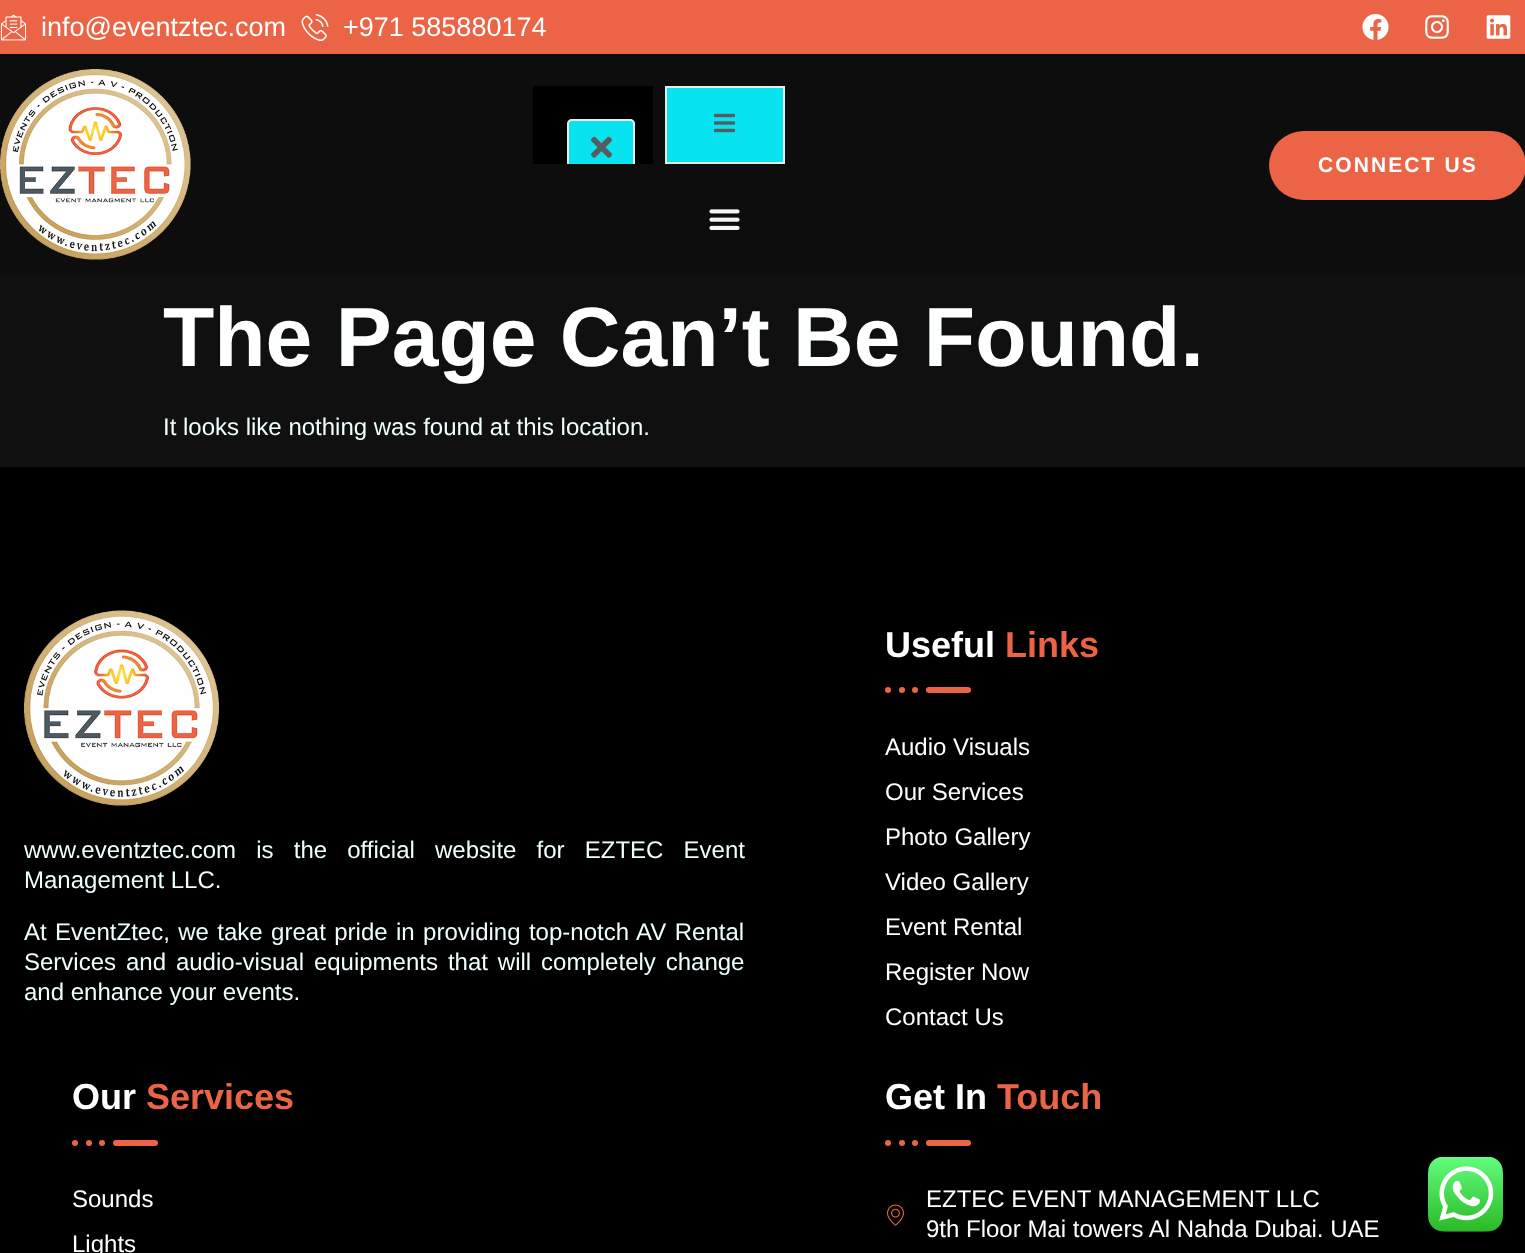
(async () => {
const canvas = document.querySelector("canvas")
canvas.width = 1525
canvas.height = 1253
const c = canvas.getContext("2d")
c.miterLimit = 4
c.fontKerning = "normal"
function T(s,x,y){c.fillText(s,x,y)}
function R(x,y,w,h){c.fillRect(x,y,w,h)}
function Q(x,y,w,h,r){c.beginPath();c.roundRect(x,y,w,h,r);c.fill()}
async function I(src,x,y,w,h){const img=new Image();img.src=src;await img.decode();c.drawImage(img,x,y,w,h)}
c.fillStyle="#101010"
R(0,0,1525,1253)
c.fillStyle="#eb6446"
R(0,0,1525,54)
await I("1.png",0,14,27,27)
c.font="27px Liberation Sans"
c.fillStyle="#feffff"
T("info@eventztec.com",41,36)
await I("2.png",301,14,28,27)
T("+971 585880174",343,36)
await I("3.png",1362,14,27,26)
await I("4.png",1425,15,24,24)
await I("5.png",1486,15,25,24)
c.fillStyle="#0d0d0d"
R(0,54,1525,221)
await I("6.png",0,69,191,191)
c.fillStyle="#000"
R(533,86,120,78)
c.fillStyle="#07e3ef"
c.beginPath()
c.roundRect(567,119,68,45,[5,5,0,0])
c.fill()
c.save()
c.beginPath()
c.rect(533,86,120,78)
c.clip()
c.beginPath()
c.roundRect(568,120,66,58,4)
c.strokeStyle="#eaeaeb"
c.lineWidth=2
c.stroke()
c.restore()
await I("7.png",591,136,21,22)
c.beginPath()
c.rect(666,87,118,76)
c.fill()
c.strokeStyle="#eaeaeb"
c.lineWidth=2
c.stroke()
await I("8.png",714,113,21,20)
await I("9.png",709,209,31,21)
c.fillStyle="#eb6446"
Q(1269,131,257,69,34.5)
c.letterSpacing="2.1px"
c.font="bold 21px Liberation Sans"
c.fillStyle="#feffff"
T("CONNECT US",1318,172)
c.letterSpacing="0px"
c.font="bold 84px Liberation Sans"
T("The Page Can’t Be Found.",163,366)
c.font="24px Liberation Sans"
c.fillStyle="#effefe"
T("It looks like nothing was found at this location.",163,435)
c.fillStyle="#000"
R(0,467,1525,786)
await I("10.png",24,610,195,196)
c.wordSpacing="13.5px"
c.fillStyle="#effefe"
T("www.eventztec.com is the official website for EZTEC Event",24,858)
c.wordSpacing="0px"
T("Management LLC.",24,888)
c.wordSpacing="1.75px"
T("At EventZtec, we take great pride in providing top-notch AV Rental",24,940)
c.wordSpacing="3.25px"
T("Services and audio-visual equipments that will completely change",24,970)
c.wordSpacing="0px"
T("and enhance your events.",24,1000)
c.font="bold 36px Liberation Sans"
c.fillStyle="#feffff"
T("Useful",885,657)
c.fillStyle="#eb6446"
T("Links",1005,657)
Q(926,687,45,6,3)
c.beginPath()
c.arc(915,690,3,0,7)
c.fill()
c.beginPath()
c.arc(902,690,3,0,7)
c.fill()
c.beginPath()
c.arc(888,690,3,0,7)
c.fill()
c.font="24px Liberation Sans"
c.fillStyle="#feffff"
T("Audio Visuals",885,755)
T("Our Services",885,800)
T("Photo Gallery",885,845)
T("Video Gallery",885,890)
T("Event Rental",885,935)
T("Register Now",885,980)
T("Contact Us",885,1025)
c.font="bold 36px Liberation Sans"
T("Our",72,1109)
c.fillStyle="#eb6446"
T("Services",146,1109)
Q(113,1140,45,6,3)
c.beginPath()
c.arc(102,1143,3,0,7)
c.fill()
c.beginPath()
c.arc(89,1143,3,0,7)
c.fill()
c.beginPath()
c.arc(75,1143,3,0,7)
c.fill()
c.font="24px Liberation Sans"
c.fillStyle="#feffff"
T("Sounds",72,1207)
T("Lights",72,1252)
c.font="bold 36px Liberation Sans"
T("Get In",885,1109)
c.fillStyle="#eb6446"
T("Touch",997,1109)
Q(926,1140,45,6,3)
c.beginPath()
c.arc(915,1143,3,0,7)
c.fill()
c.beginPath()
c.arc(902,1143,3,0,7)
c.fill()
c.beginPath()
c.arc(888,1143,3,0,7)
c.fill()
await I("11.png",887,1204,17,22)
c.font="24px Liberation Sans"
c.fillStyle="#feffff"
T("EZTEC EVENT MANAGEMENT LLC",926,1207)
T("9th Floor Mai towers Al Nahda Dubai. UAE",926,1237)
await I("12.png",1428,1157,75,75)
})()
